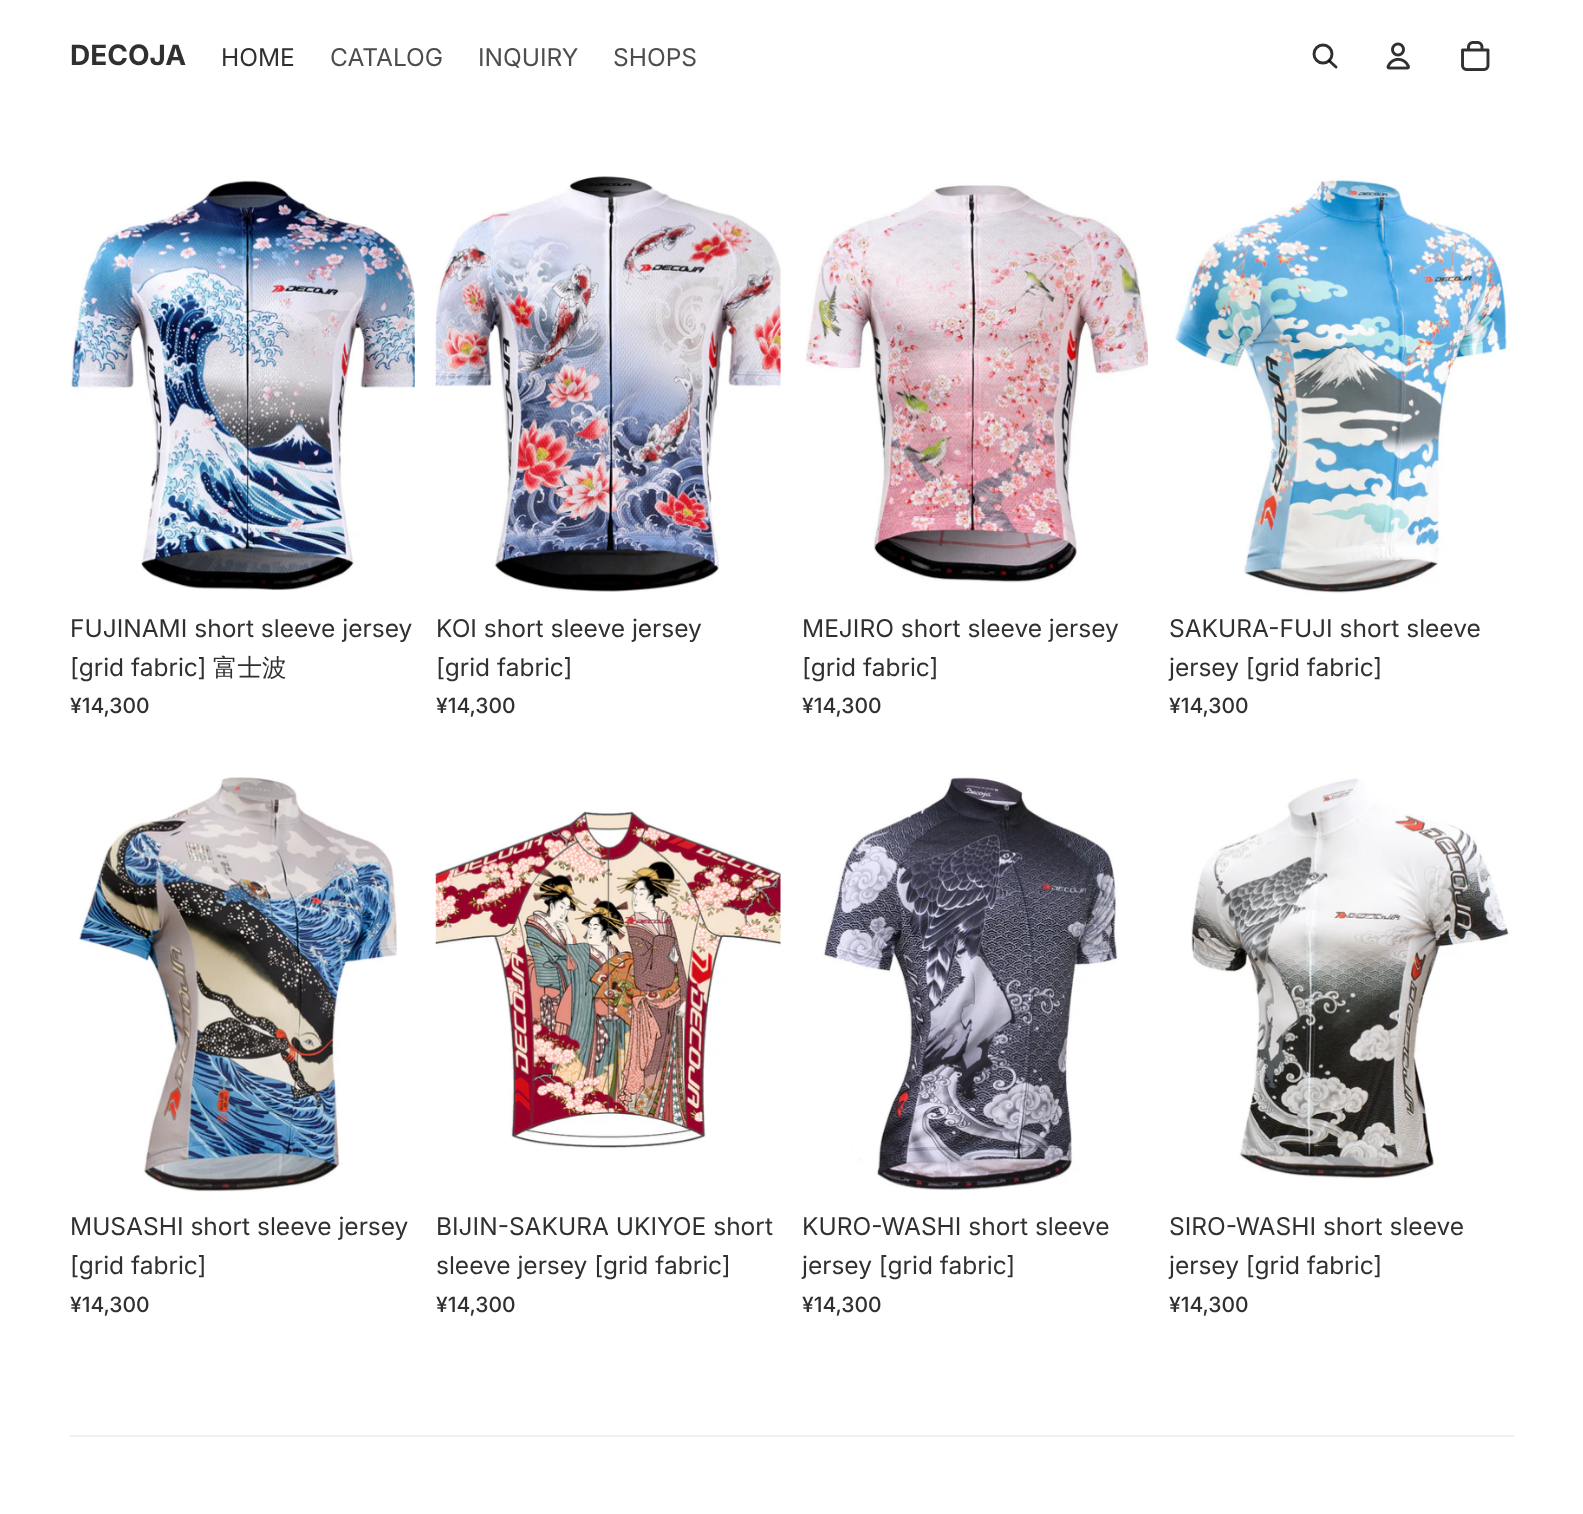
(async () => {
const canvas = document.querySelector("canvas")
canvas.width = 1583
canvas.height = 1514
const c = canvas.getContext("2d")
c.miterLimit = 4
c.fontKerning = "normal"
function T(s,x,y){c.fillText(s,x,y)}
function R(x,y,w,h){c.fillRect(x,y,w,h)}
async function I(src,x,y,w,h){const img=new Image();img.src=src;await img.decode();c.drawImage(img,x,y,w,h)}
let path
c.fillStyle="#fff"
R(0,0,1583,1514)
c.font="bold 28px Inter"
c.fillStyle="#303030"
T("DECOJA",70,65)
c.font="24.5px Inter"
T("HOME",221,66)
c.fillStyle="#4d4d4d"
T("CATALOG",330,66)
T("INQUIRY",478,66)
T("SHOPS",613,66)
c.beginPath()
c.arc(1323,54,9,0,7)
c.strokeStyle="#303030"
c.lineWidth=2.9
c.stroke()
path = new Path2D("M1329.5 61l6.5 6")
c.strokeStyle="#000000cf"
c.lineCap="round"
c.lineJoin="round"
c.stroke(path)
await I("1.png",1386,42,24,28)
await I("2.png",1461,41,29,30)
await I("3.png",70,180,345,411)
c.fillStyle="#303030"
T("FUJINAMI short sleeve jersey",70,637)
T("[grid fabric]",70,676)
c.font="500 24.5px WenQuanYi Zen Hei"
T("富士波",213,676)
c.font="500 21px Inter"
T("¥14,300",70,713)
await I("4.png",435,176,346,416)
c.font="24.5px Inter"
T("KOI short sleeve jersey",436,637)
T("[grid fabric]",436,676)
c.font="500 21px Inter"
T("¥14,300",436,713)
await I("5.png",805,183,343,400)
c.font="24.5px Inter"
T("MEJIRO short sleeve jersey",802,637)
T("[grid fabric]",802,676)
c.font="500 21px Inter"
T("¥14,300",802,713)
await I("6.png",1174,177,333,417)
c.font="24.5px Inter"
T("SAKURA-FUJI short sleeve",1169,637)
T("jersey [grid fabric]",1169,676)
c.font="500 21px Inter"
T("¥14,300",1169,713)
await I("7.png",79,777,318,415)
c.font="24.5px Inter"
T("MUSASHI short sleeve jersey",70,1235)
T("[grid fabric]",70,1274)
c.font="500 21px Inter"
T("¥14,300",70,1312)
await I("8.png",435,811,346,338)
c.font="24.5px Inter"
T("BIJIN-SAKURA UKIYOE short",436,1235)
T("sleeve jersey [grid fabric]",436,1274)
c.font="500 21px Inter"
T("¥14,300",436,1312)
await I("9.png",822,776,296,415)
c.font="24.5px Inter"
T("KURO-WASHI short sleeve",802,1235)
T("jersey [grid fabric]",802,1274)
c.font="500 21px Inter"
T("¥14,300",802,1312)
await I("10.png",1191,778,318,401)
c.font="24.5px Inter"
T("SIRO-WASHI short sleeve",1169,1235)
T("jersey [grid fabric]",1169,1274)
c.font="500 21px Inter"
T("¥14,300",1169,1312)
c.fillStyle="#f0f0f0"
path = new Path2D("M1514 1435v2l-2-2z")
c.fill(path)
c.fillStyle="#0000000f"
path = new Path2D("M1514 1437h-1444v-2h1442z")
c.fill(path)
})()
